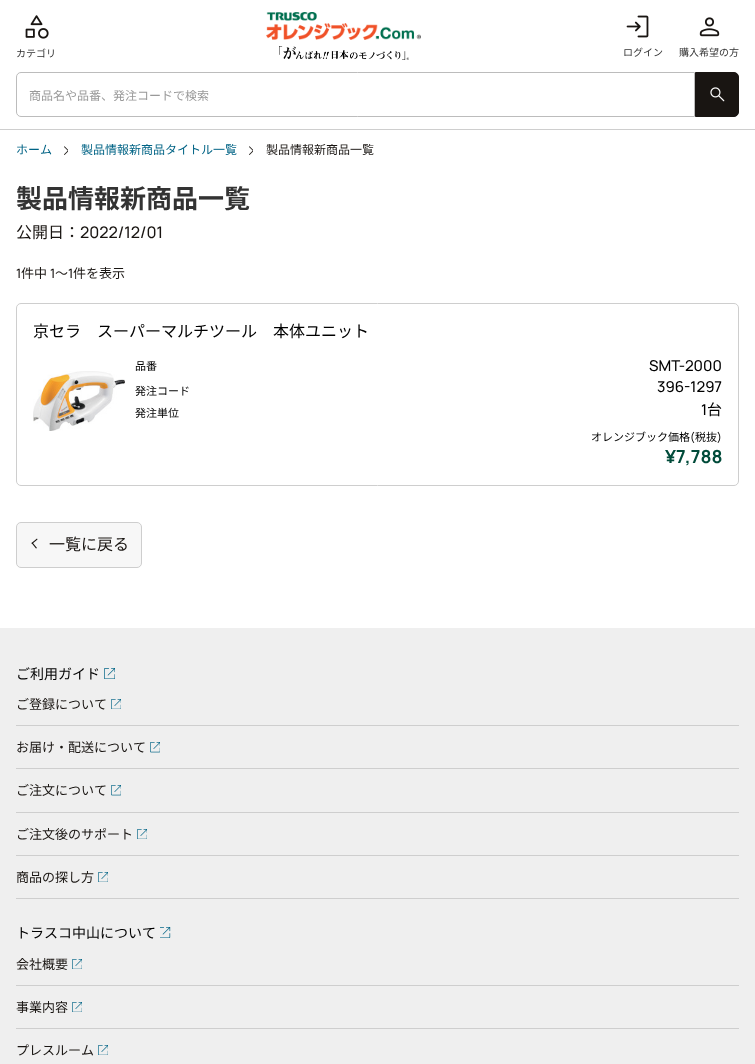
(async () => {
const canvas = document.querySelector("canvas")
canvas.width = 755
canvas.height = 1064
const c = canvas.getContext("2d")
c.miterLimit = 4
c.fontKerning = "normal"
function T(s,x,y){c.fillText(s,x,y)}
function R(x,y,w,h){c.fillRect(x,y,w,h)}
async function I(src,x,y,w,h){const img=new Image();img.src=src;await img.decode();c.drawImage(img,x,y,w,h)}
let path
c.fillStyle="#fff"
R(0,0,755,1064)
await I("1.png",25,15,24,24)
c.font="10px Noto Sans JP"
c.fillStyle="#333"
T("カテゴリ",16,57)
await I("2.png",266,12,155,28)
await I("3.png",279,46,130,14)
await I("4.png",626,15,23,23)
T("ログイン",623,56)
await I("5.png",699,17,21,20)
T("購入希望の方",679,56)
c.beginPath()
c.roundRect(16.5,72.5,678,44,[4.5,0,0,4.5])
c.strokeStyle="#bcbcbc"
c.stroke()
c.font="12px Noto Sans JP"
c.fillStyle="#999"
T("商品名や品番、発注コードで検索",29,100)
c.fillStyle="#191512"
c.beginPath()
c.roundRect(695.5,72.5,43,44,[0,4.5,4.5,0])
c.fill()
c.strokeStyle="#191512"
c.stroke()
await I("6.png",710,87,15,15)
c.fillStyle="#cecece"
R(0,129,755,1)
c.fillStyle="#006385"
T("ホーム",16,154)
await I("7.png",64,146,4,9)
T("製品情報新商品タイトル一覧",81,154)
await I("7.png",249,146,4,9)
c.fillStyle="#191512"
T("製品情報新商品一覧",266,154)
c.font="bold 26px Noto Sans JP"
c.fillStyle="#333"
T("製品情報新商品一覧",16,208)
c.font="16px Noto Sans JP"
c.fillStyle="#191512"
T("公開日：",16,238)
c.font="500 16px Manrope"
T("2022/12/01",80,238)
c.font="500 13px Manrope"
T("1",16,278)
c.font="13px Noto Sans JP"
T("件中",21,278)
c.font="500 13px Manrope"
T("1",50,278)
c.font="13px Noto Sans JP"
T("〜",55,278)
c.font="500 13px Manrope"
T("1",68,278)
c.font="13px Noto Sans JP"
T("件を表示",73,278)
c.beginPath()
c.roundRect(16.5,303.5,722,182,4.5)
c.strokeStyle="#cecece"
c.stroke()
c.font="16px Noto Sans JP"
c.fillStyle="#000"
T("京セラ　スーパーマルチツール　本体ユニット",33,337)
await I("8.png",33,371,92,60)
c.font="11px Noto Sans JP"
T("品番",135,370)
c.font="500 15px Manrope"
T("SMT-2000",649,371)
c.font="11px Noto Sans JP"
T("発注コード",135,395)
c.font="500 15px Manrope"
T("396-1297",657,392)
c.font="11px Noto Sans JP"
T("発注単位",135,417)
c.font="500 15px Manrope"
T("1",701,415)
c.font="15px Noto Sans JP"
T("台",707,415)
c.font="11px Noto Sans JP"
T("オレンジブック価格",591,441)
c.font="500 11px Manrope"
T("(",690,441)
c.font="11px Noto Sans JP"
T("税抜",695,441)
c.font="500 11px Manrope"
T(")",717,441)
c.font="bold 18px Manrope"
c.fillStyle="#014b3a"
T("¥7,788",665,463)
c.fillStyle="#f7f7f7"
c.beginPath()
c.roundRect(16.5,522.5,125,45,4.5)
c.fill()
c.stroke()
c.fillStyle="#191512"
path = new Path2D("M36 548.5l-4.5-5.5l1-.5l4.5 5.5z")
c.fill(path)
path = new Path2D("M32 544l-.5-1l5.5-4.5l.5 1z")
c.fill(path)
c.font="16px Noto Sans JP"
T("一覧に戻る",49,550)
c.fillStyle="#efefef"
R(0,628,755,436)
c.font="14px Noto Sans JP"
c.fillStyle="#000"
T("ご利用ガイド",16,679)
await I("9.png",104,668,11,11)
c.fillStyle="#cecece"
R(16,725,723,1)
c.font="13px Noto Sans JP"
c.fillStyle="#191512"
T("ご登録について",16,709)
await I("10.png",111,699,10,10)
c.fillStyle="#cecece"
R(16,768,723,1)
c.fillStyle="#191512"
T("お届け・配送について",16,752)
await I("11.png",150,742,10,11)
c.fillStyle="#cecece"
R(16,812,723,1)
c.fillStyle="#191512"
T("ご注文について",16,795)
await I("11.png",111,785,10,11)
c.fillStyle="#cecece"
R(16,855,723,1)
c.fillStyle="#191512"
T("ご注文後のサポート",16,839)
await I("10.png",137,829,10,10)
c.fillStyle="#cecece"
R(16,898,723,1)
c.fillStyle="#191512"
T("商品の探し方",16,882)
await I("10.png",98,872,10,10)
c.font="14px Noto Sans JP"
c.fillStyle="#000"
T("トラスコ中山について",16,938)
await I("12.png",160,927,11,11)
c.fillStyle="#cecece"
R(16,985,723,1)
c.font="13px Noto Sans JP"
c.fillStyle="#191512"
T("会社概要",16,969)
await I("10.png",72,959,10,10)
c.fillStyle="#cecece"
R(16,1028,723,1)
c.fillStyle="#191512"
T("事業内容",16,1012)
await I("10.png",72,1002,10,10)
T("プレスルーム",16,1055)
await I("10.png",98,1045,10,10)
})()
